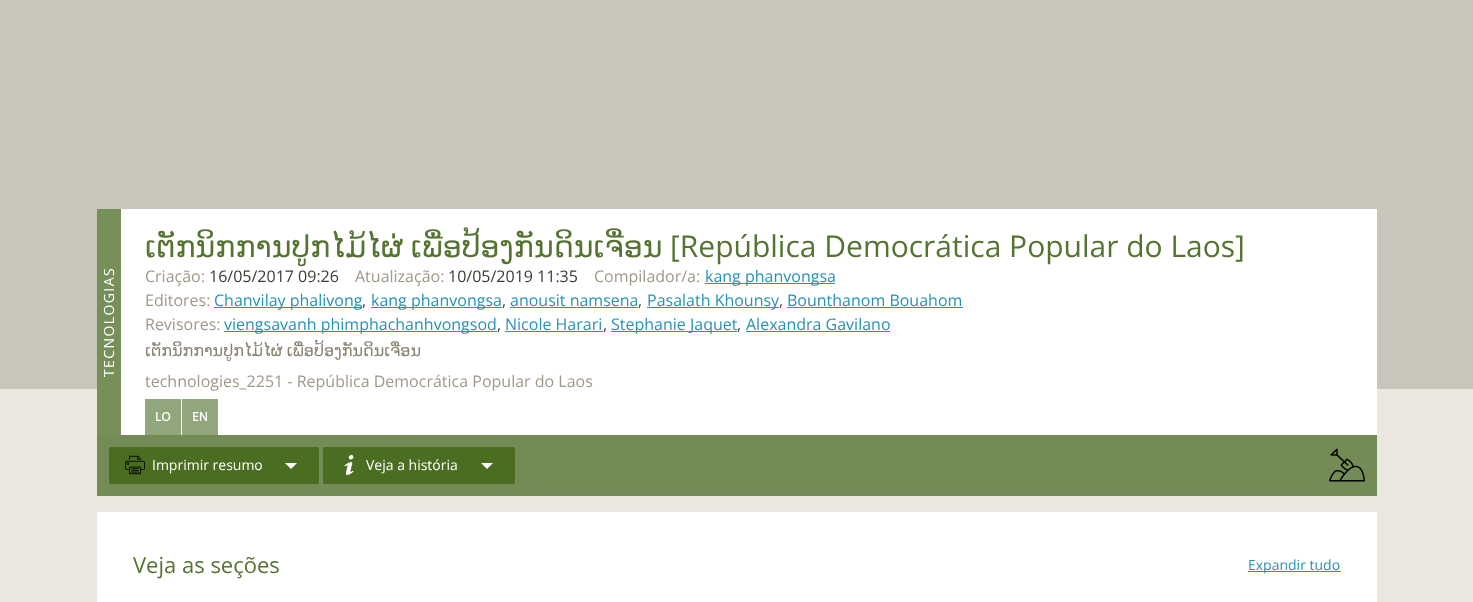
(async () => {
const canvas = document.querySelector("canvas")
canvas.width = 1473
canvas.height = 602
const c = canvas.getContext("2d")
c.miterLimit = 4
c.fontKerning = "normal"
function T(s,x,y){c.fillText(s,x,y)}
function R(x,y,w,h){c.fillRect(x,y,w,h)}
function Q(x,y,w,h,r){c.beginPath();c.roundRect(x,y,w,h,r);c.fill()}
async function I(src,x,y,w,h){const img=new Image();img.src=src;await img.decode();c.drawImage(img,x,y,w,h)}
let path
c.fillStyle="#eae8df"
R(0,0,1473,602)
c.fillStyle="#cac5ba"
R(0,0,1473,389)
c.fillStyle="#fff"
R(121,209,1256,226)
c.wordSpacing="-2px"
c.font="30px DejaVu Sans"
c.fillStyle="#557431"
T("ເຕັກນິກການປູກໄມ້ໄຜ່ ເພື່ອປ້ອງກັນດິນເຈື່ອນ",145,257)
c.wordSpacing="0px"
c.font="30px Open Sans"
T("[República Democrática Popular do Laos]",670,257)
c.fillStyle="#77905a"
R(97,209,24,226)
c.letterSpacing="1.4px"
c.font="14px Open Sans"
c.fillStyle="#fff"
c.save()
c.translate(114,377)
c.rotate(-90 * Math.PI / 180)
c.fillText("TECNOLOGIAS",0,0)
c.restore()
c.letterSpacing="0px"
c.font="16px Open Sans"
c.fillStyle="#a09889"
T("Criação:",145,282)
c.fillStyle="#3e3b34"
T("16/05/2017 09:26",209,282)
c.fillStyle="#a09889"
T("Atualização:",355,282)
c.fillStyle="#3e3b34"
T("10/05/2019 11:35",448,282)
c.fillStyle="#a09889"
T("Compilador/a:",594,282)
c.fillStyle="#2592b7"
R(705,283,130,1)
T("kang phanvongsa",705,282)
c.fillStyle="#a09889"
T("Editores:",145,306)
c.fillStyle="#2592b7"
R(214,307,148,1)
T("Chanvilay phalivong",214,306)
c.fillStyle="#3e3b34"
T(",",362,306)
c.fillStyle="#2592b7"
R(371,307,131,1)
T("kang phanvongsa",371,306)
c.fillStyle="#3e3b34"
T(",",502,306)
c.fillStyle="#2592b7"
T("anousit namsena",510,306)
R(510,307,128,1)
c.fillStyle="#3e3b34"
T(",",638,306)
c.fillStyle="#2592b7"
R(647,307,132,1)
T("Pasalath Khounsy",647,306)
c.fillStyle="#3e3b34"
T(",",779,306)
c.fillStyle="#2592b7"
T("Bounthanom Bouahom",787,306)
R(787,307,176,1)
c.fillStyle="#a09889"
T("Revisores:",145,330)
c.fillStyle="#2592b7"
R(224,331,273,1)
T("viengsavanh phimphachanhvongsod",224,330)
c.fillStyle="#3e3b34"
T(",",497,330)
c.fillStyle="#2592b7"
T("Nicole Harari",505,330)
R(505,331,98,1)
c.fillStyle="#3e3b34"
T(",",603,330)
c.fillStyle="#2592b7"
R(611,331,126,1)
T("Stephanie Jaquet",611,330)
c.fillStyle="#3e3b34"
T(",",737,330)
c.fillStyle="#2592b7"
T("Alexandra Gavilano",746,330)
R(746,331,144,1)
c.wordSpacing="-1px"
c.font="16px DejaVu Sans"
c.fillStyle="#898373"
T("ເຕັກນິກການປູກໄມ້ໄຜ່ ເພື່ອປ້ອງກັນດິນເຈື່ອນ",145,356)
c.wordSpacing="0px"
c.font="16px Open Sans"
c.fillStyle="#a09889"
T("technologies_2251 - República Democrática Popular do Laos",145,387)
c.fillStyle="#92a67b"
R(145,399,36,36)
c.font="bold 12px Open Sans"
c.fillStyle="#fff"
T("LO",155,421)
c.fillStyle="#92a67b"
R(182,399,36,36)
c.fillStyle="#fff"
T("EN",192,421)
c.fillStyle="#738b54"
R(97,435,1280,61)
c.fillStyle="#4a6d22"
Q(109,447,210,37,2)
await I("1.png",125,455,20,20)
c.font="14px Open Sans"
c.fillStyle="#fff"
T("Imprimir resumo",152,470)
path = new Path2D("M285 463h12l-6 6z")
c.fill(path)
c.fillStyle="#4a6d22"
Q(323,447,192,37,2)
await I("2.png",344,455,10,20)
c.fillStyle="#fff"
T("Veja a história",366,470)
path = new Path2D("M481 463h12l-6 6z")
c.fill(path)
await I("3.png",1329,448,36,34)
R(97,512,1280,90)
c.font="22px Open Sans"
c.fillStyle="#557431"
T("Veja as seções",133,573)
c.fillStyle="#2592b7"
R(1248,571,93,1)
c.font="14px Open Sans"
T("Expandir tudo",1248,570)
})()
